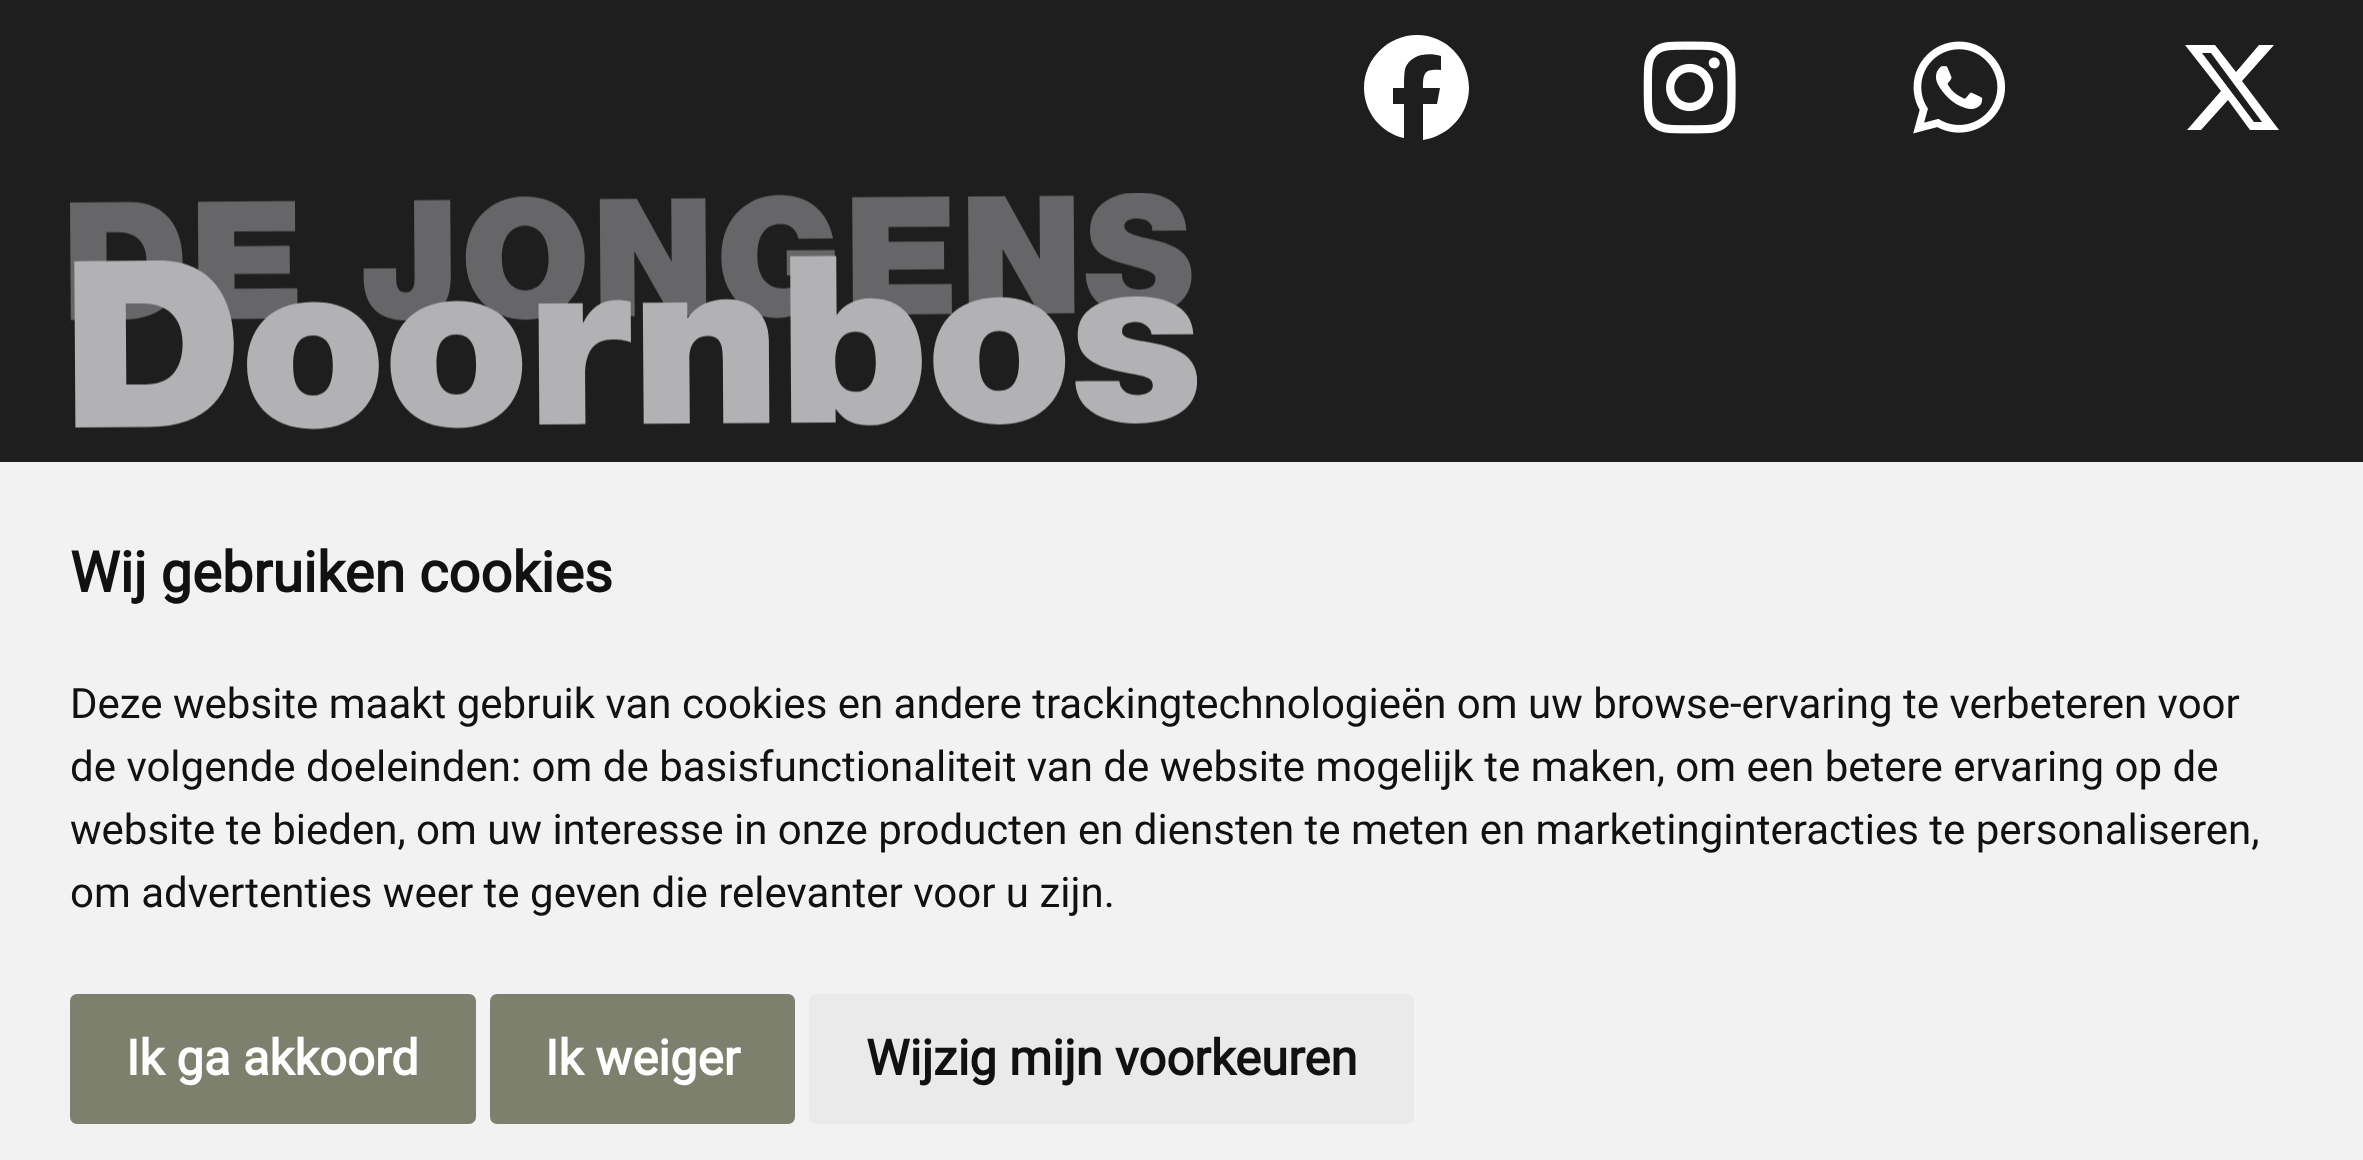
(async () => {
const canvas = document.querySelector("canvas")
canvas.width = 2363
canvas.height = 1160
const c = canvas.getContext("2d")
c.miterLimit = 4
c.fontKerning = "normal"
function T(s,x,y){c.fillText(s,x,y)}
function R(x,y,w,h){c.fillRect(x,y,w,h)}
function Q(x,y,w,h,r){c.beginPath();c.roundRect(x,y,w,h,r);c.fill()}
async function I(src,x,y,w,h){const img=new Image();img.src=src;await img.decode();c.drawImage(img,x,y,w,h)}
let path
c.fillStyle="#1e1e1e"
R(0,0,2363,1160)
c.fillStyle="#fff"
path = new Path2D("M1469 88c0-29-23-53-52-53c-29 0-53 24-53 53c0 24 17 45 40 50v-34h-11v-16h11c0-7 0-13 1-19c5-15 23-17 36-13v14c-16-1-18 2-18 18h17l-3 16h-14v36c26-4 46-26 46-52z")
c.fill(path)
await I("1.png",1643,41,93,93)
await I("2.png",1913,41,93,93)
path = new Path2D("M2259 45h15l-32 36l37 49h-29l-22-30l-27 30h-14l34-39l-36-46h30l21 27zm-5 77h8l-51-69h-9z")
c.fill(path)
await I("3.png",70,193,1127,237)
c.fillStyle="#f2f2f2"
R(0,462,2363,698)
c.font="bold 56px Roboto"
c.fillStyle="#111"
T("Wij gebruiken cookies",70,592)
c.font="42px Roboto"
T("Deze website maakt gebruik van cookies en andere trackingtechnologieën om uw browse-ervaring te verbeteren voor",70,718)
T("de volgende doeleinden: om de basisfunctionaliteit van de website mogelijk te maken, om een betere ervaring op de",70,781)
T("website te bieden, om uw interesse in onze producten en diensten te meten en marketinginteracties te personaliseren,",70,844)
T("om advertenties weer te geven die relevanter voor u zijn.",70,907)
c.fillStyle="#7c806d"
Q(70,994,406,130,7)
c.font="bold 49px Roboto"
c.fillStyle="#fff"
T("Ik ga akkoord",126,1075)
c.fillStyle="#7c806d"
Q(490,994,305,130,7)
c.fillStyle="#fff"
T("Ik weiger",545,1075)
c.fillStyle="#eaeaea"
Q(809,994,605,130,7)
c.fillStyle="#111"
T("Wijzig mijn voorkeuren",866,1075)
})()
